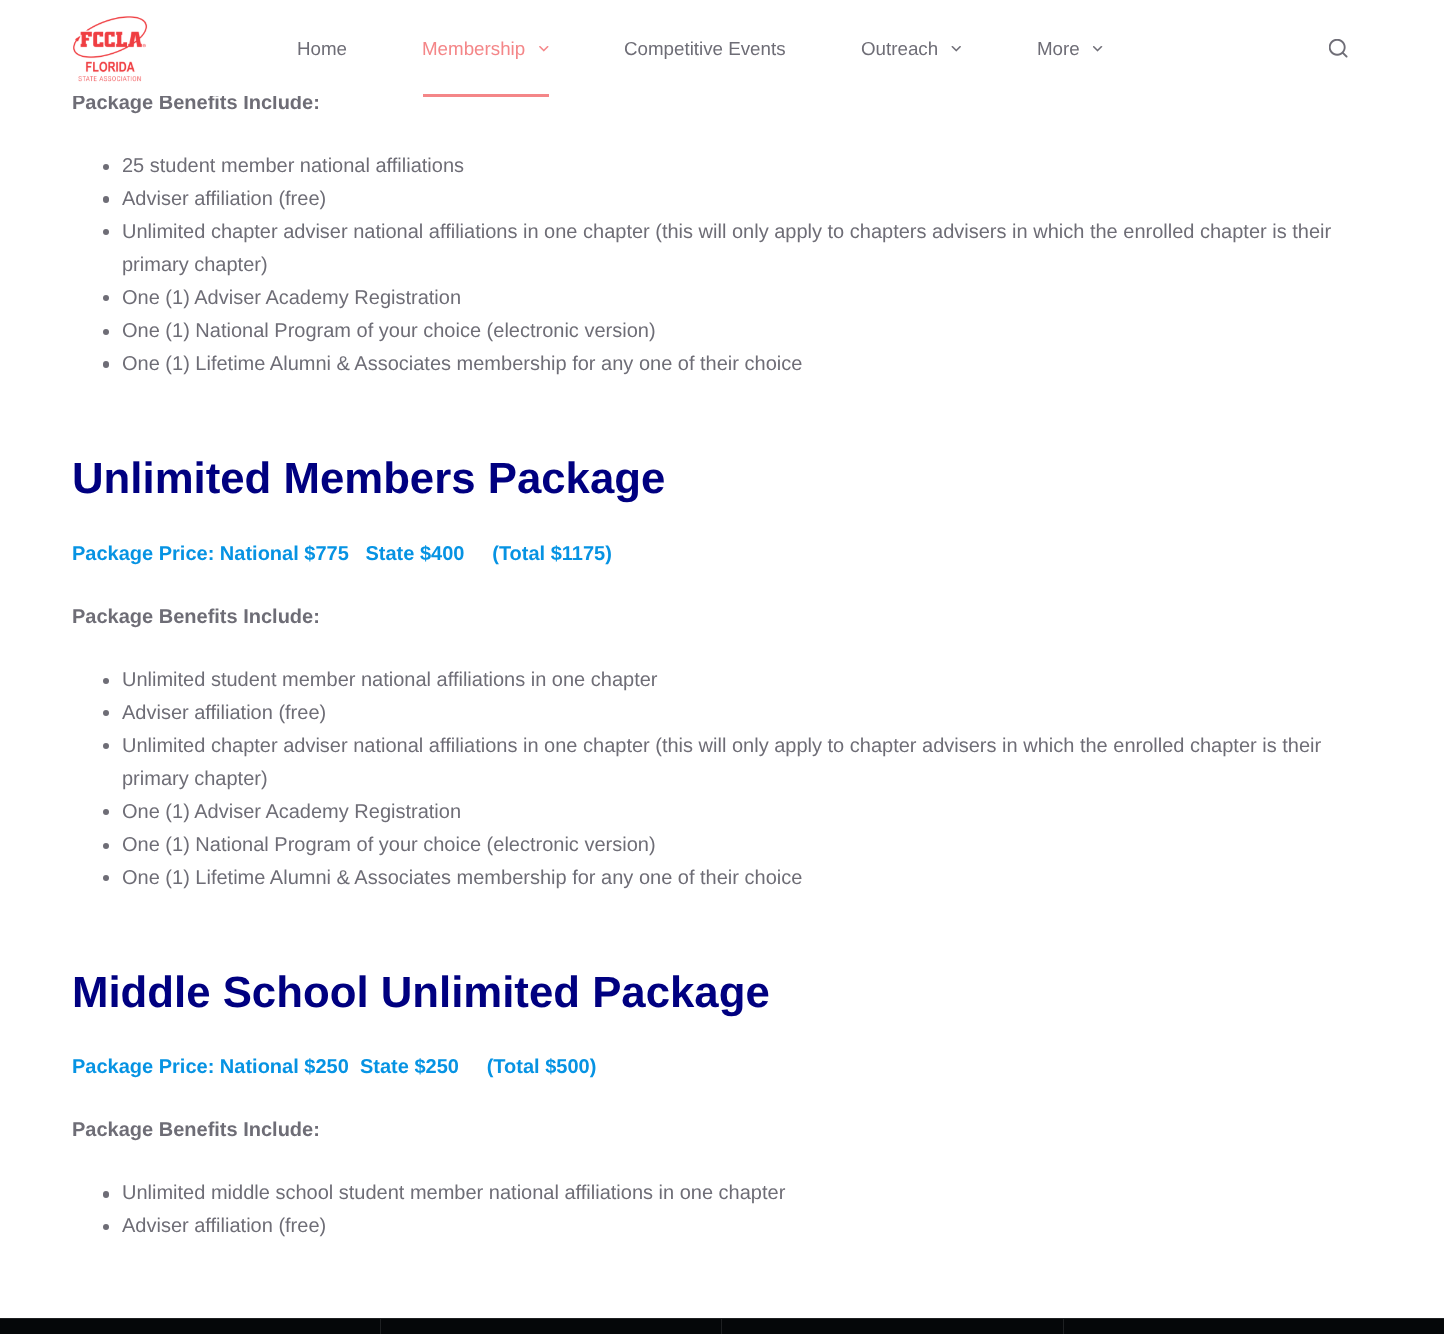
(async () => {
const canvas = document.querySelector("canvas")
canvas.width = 1444
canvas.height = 1334
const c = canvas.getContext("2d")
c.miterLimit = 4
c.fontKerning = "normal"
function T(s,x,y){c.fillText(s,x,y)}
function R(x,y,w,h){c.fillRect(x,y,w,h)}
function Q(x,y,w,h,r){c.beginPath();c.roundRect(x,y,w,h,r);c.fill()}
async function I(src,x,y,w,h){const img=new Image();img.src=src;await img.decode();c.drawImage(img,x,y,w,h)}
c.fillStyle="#fff"
R(0,0,1444,1334)
c.font="bold 20px Liberation Sans"
c.fillStyle="#6e6d76"
T("Package Benefits Include:",72,109)
c.fillStyle="#fff"
R(73,94,228,2)
await I("1.png",73,16,75,66)
c.font="18.75px Liberation Sans"
c.fillStyle="#6e6d76"
T("Home",297,55)
c.fillStyle="#f48688"
T("Membership",422,55)
await I("2.png",539,46,10,6)
R(423,94,126,3)
c.fillStyle="#6e6d76"
T("Competitive Events",624,55)
T("Outreach",861,55)
await I("3.png",951,46,10,6)
T("More",1037,55)
await I("4.png",1093,46,10,6)
await I("5.png",1329,39,19,19)
c.beginPath()
c.arc(106,167,3,0,7)
c.fill()
c.font="20px Liberation Sans"
T("25 student member national affiliations",122,172)
Q(103,196,6,7,3)
T("Adviser affiliation (free)",122,205)
c.beginPath()
c.arc(106,232,3,0,7)
c.fill()
T("Unlimited chapter adviser national affiliations in one chapter (this will only apply to chapters advisers in which the enrolled chapter is their",122,238)
T("primary chapter)",122,271)
c.beginPath()
c.arc(106,298,3,0,7)
c.fill()
T("One (1) Adviser Academy Registration",122,304)
c.beginPath()
c.arc(106,332,3,0,7)
c.fill()
T("One (1) National Program of your choice (electronic version)",122,337)
Q(103,361,6,7,3)
T("One (1) Lifetime Alumni & Associates membership for any one of their choice",122,370)
c.font="bold 43.75px Liberation Sans"
c.fillStyle="#000080"
T("Unlimited Members Package",72,493)
c.font="bold 20px Liberation Sans"
c.fillStyle="#0693e3"
T("Package Price: National $775   State $400     (Total $1175)",72,560)
c.fillStyle="#6e6d76"
T("Package Benefits Include:",72,623)
c.beginPath()
c.arc(106,681,3,0,7)
c.fill()
c.font="20px Liberation Sans"
T("Unlimited student member national affiliations in one chapter",122,686)
c.beginPath()
c.arc(106,713,3,0,7)
c.fill()
T("Adviser affiliation (free)",122,719)
c.beginPath()
c.arc(106,746,3,0,7)
c.fill()
T("Unlimited chapter adviser national affiliations in one chapter (this will only apply to chapter advisers in which the enrolled chapter is their",122,752)
T("primary chapter)",122,785)
c.beginPath()
c.arc(106,812,3,0,7)
c.fill()
T("One (1) Adviser Academy Registration",122,818)
c.beginPath()
c.arc(106,846,3,0,7)
c.fill()
T("One (1) National Program of your choice (electronic version)",122,851)
c.beginPath()
c.arc(106,878,3,0,7)
c.fill()
T("One (1) Lifetime Alumni & Associates membership for any one of their choice",122,884)
c.font="bold 43.75px Liberation Sans"
c.fillStyle="#000080"
T("Middle School Unlimited Package",72,1007)
c.font="bold 20px Liberation Sans"
c.fillStyle="#0693e3"
T("Package Price: National $250  State $250     (Total $500)",72,1073)
c.fillStyle="#6e6d76"
T("Package Benefits Include:",72,1136)
Q(103,1191,6,7,3)
c.font="20px Liberation Sans"
T("Unlimited middle school student member national affiliations in one chapter",122,1199)
c.beginPath()
c.arc(106,1227,3,0,7)
c.fill()
T("Adviser affiliation (free)",122,1232)
c.fillStyle="#050709"
R(0,1319,1444,15)
c.fillStyle="#1e2022"
R(0,1318,1444,1)
R(380,1319,1,15)
R(721,1319,1,15)
R(1063,1319,1,15)
})()
